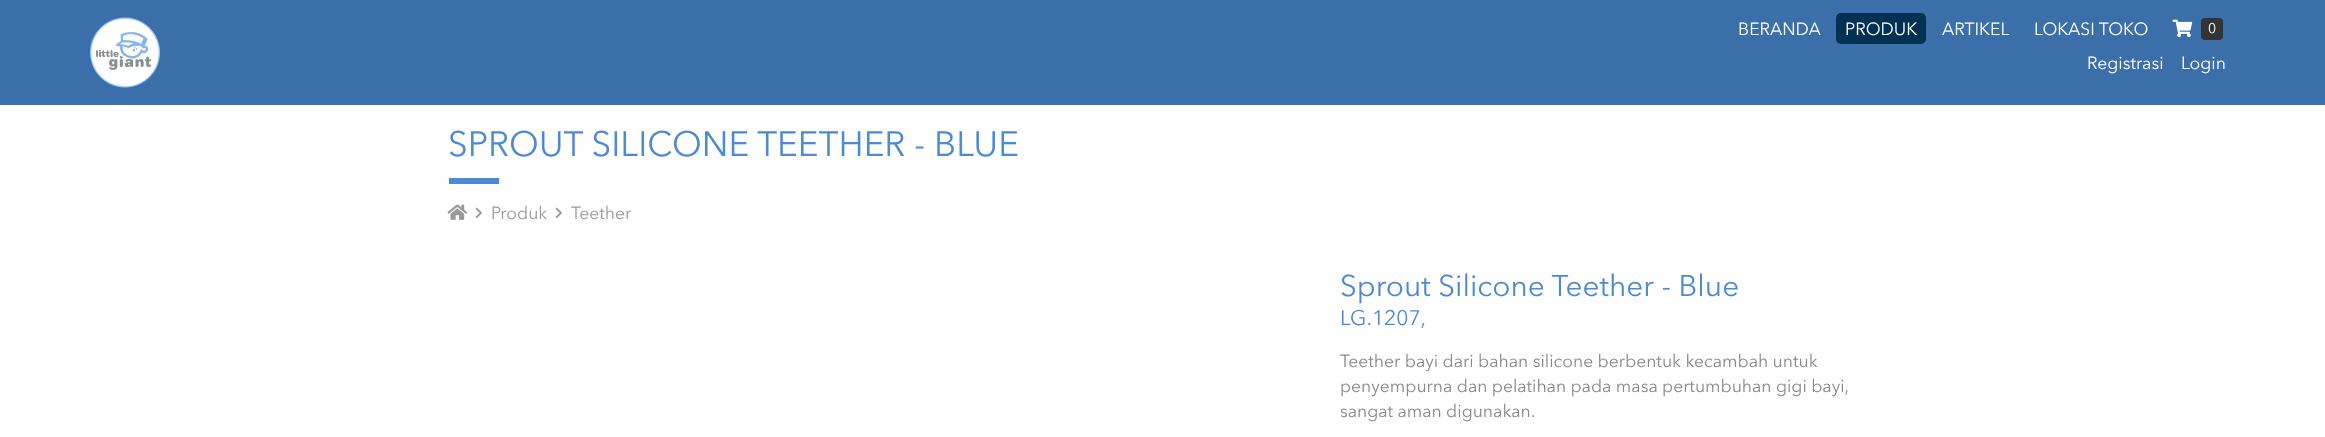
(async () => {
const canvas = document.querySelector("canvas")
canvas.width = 2325
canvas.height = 437
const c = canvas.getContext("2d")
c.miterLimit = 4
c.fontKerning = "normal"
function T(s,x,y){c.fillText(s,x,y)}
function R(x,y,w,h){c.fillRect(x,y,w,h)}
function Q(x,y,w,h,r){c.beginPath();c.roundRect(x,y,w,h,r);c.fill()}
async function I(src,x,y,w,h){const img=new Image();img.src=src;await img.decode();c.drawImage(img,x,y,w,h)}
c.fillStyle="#fff"
R(0,0,2325,437)
c.fillStyle="#3b6faa"
R(0,0,2325,105)
await I("1.png",90,17,70,71)
c.font="17.5px Avenir Next"
c.fillStyle="#fff"
T("BERANDA",1738,35)
c.fillStyle="#003152"
Q(1836,13,90,31,5)
c.fillStyle="#fff"
T("PRODUK",1845,35)
T("ARTIKEL",1942,35)
T("LOKASI TOKO",2034,35)
await I("2.png",2172,19,21,19)
c.fillStyle="#333"
Q(2201,18,22,22,4)
c.font="14px Avenir Next"
c.fillStyle="#fff"
T("0",2208,33)
c.font="17.5px Avenir Next"
T("Registrasi",2087,69)
T("Login",2181,69)
c.font="35px Avenir Next"
c.fillStyle="#4c8ad4"
T("SPROUT SILICONE TEETHER - BLUE",448,156)
R(449,178,50,6)
await I("3.png",447,204,21,16)
await I("4.png",475,207,7,11)
c.font="17.5px Avenir Next"
c.fillStyle="#999"
T("Produk",491,219)
await I("4.png",555,207,7,11)
T("Teether",571,219)
c.font="29.75px Avenir Next"
c.fillStyle="#4c8ad4"
T("Sprout Silicone Teether - Blue",1340,296)
c.font="21px Avenir Next"
T("LG.1207,",1340,325)
c.font="17.5px Avenir Next"
c.fillStyle="#898989"
T("Teether bayi dari bahan silicone berbentuk kecambah untuk",1340,367)
T("penyempurna dan pelatihan pada masa pertumbuhan gigi bayi,",1340,392)
T("sangat aman digunakan.",1340,417)
})()
